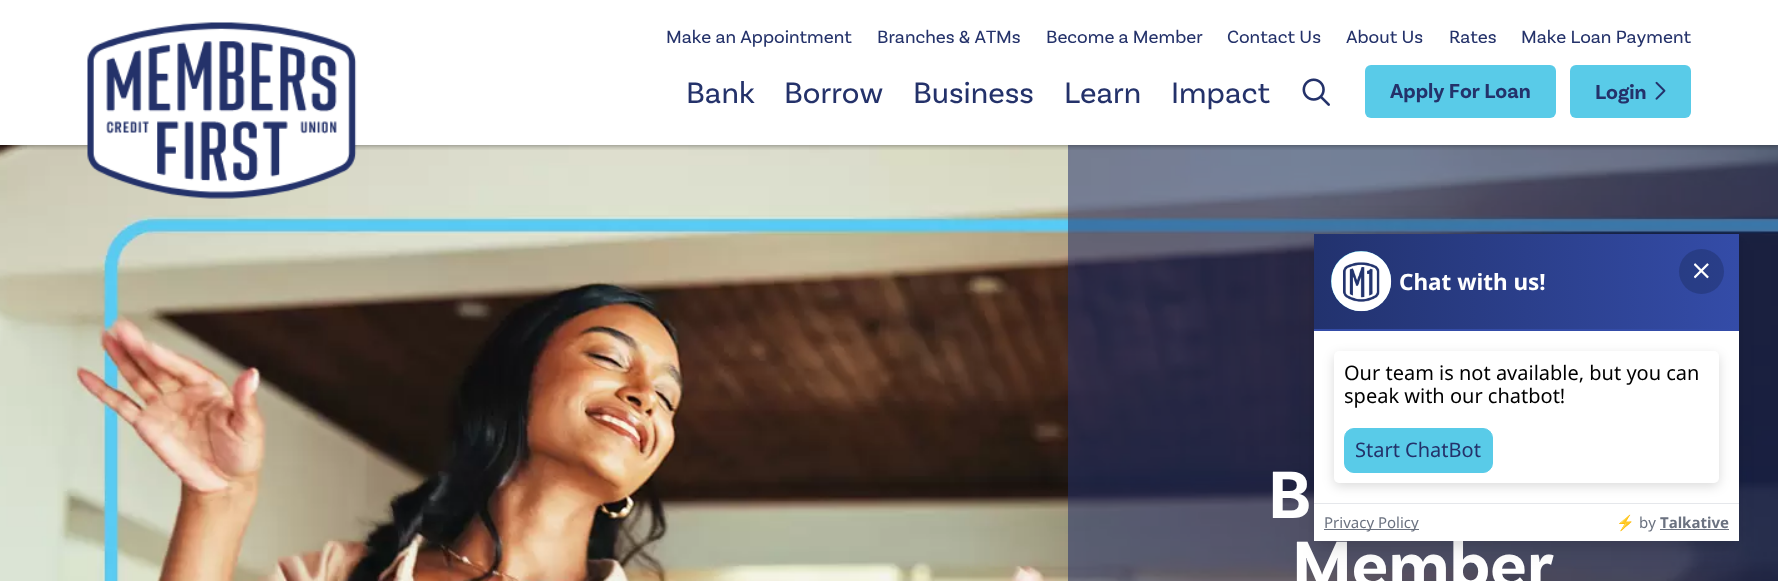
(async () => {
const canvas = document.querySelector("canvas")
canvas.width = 1778
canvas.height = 581
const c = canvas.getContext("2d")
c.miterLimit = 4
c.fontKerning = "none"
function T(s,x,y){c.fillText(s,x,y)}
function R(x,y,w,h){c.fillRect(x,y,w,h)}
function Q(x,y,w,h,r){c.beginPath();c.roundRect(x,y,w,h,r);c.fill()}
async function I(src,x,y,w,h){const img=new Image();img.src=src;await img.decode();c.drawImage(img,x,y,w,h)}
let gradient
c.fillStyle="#fff"
R(0,0,1778,581)
await I("4.png",0,145,1778,436)
c.fillStyle="#24326a8c"
R(1068,145,710,436)
c.save()
c.beginPath()
c.rect(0,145,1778,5)
c.clip()
c.fillStyle="#00000080"
c.filter="blur(3px)"
c.beginPath()
c.rect(0,0,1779,145)
c.fill()
c.filter="none"
c.restore()
await I("1.png",87,22,270,177)
c.font="18.75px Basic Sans"
c.fillStyle="#24326a"
T("Make an Appointment",666,43)
T("Branches & ATMs",877,43)
T("Become a Member",1046,43)
T("Contact Us",1227,43)
T("About Us",1346,43)
T("Rates",1449,43)
T("Make Loan Payment",1521,43)
c.font="31px Basic Sans"
T("Bank",686,103)
T("Borrow",784,103)
T("Business",913,103)
T("Learn",1064,103)
T("Impact",1171,103)
await I("2.png",1302,78,28,28)
c.fillStyle="#59cbe8"
Q(1365,65,191,53,6)
c.font="bold 21.25px Basic Sans"
c.fillStyle="#24326a"
T("Apply For Loan",1390,98)
c.fillStyle="#59cbe8"
Q(1570,65,121,53,6)
c.fillStyle="#24326a"
T("Login",1595,99)
await I("3.png",1655,81,11,19)
c.font="bold 70px Basic Sans"
c.fillStyle="#fff"
T("B",1268,518)
T("Member",1292,588)
c.fillStyle="#0000000d"
c.filter="blur(4px)"
c.beginPath()
c.rect(1316,241,420,303)
c.fill()
c.filter="none"
c.fillStyle="#0000001a"
c.filter="blur(9.5px)"
c.beginPath()
c.rect(1318,250,417,300)
c.fill()
c.filter="none"
gradient = c.createLinearGradient(1314,281,1739,281)
gradient.addColorStop(0,"#22326e")
gradient.addColorStop(1,"#344ca8")
c.fillStyle = gradient
R(1314,234,425,95)
c.fillStyle="#344ca8"
R(1314,329,425,2)
c.fillStyle="#59cbe8"
c.beginPath()
c.arc(1361,281,30,0,7)
c.fill()
await I("5.png",1331,251,61,61)
c.font="bold 22.5px Noto Sans"
c.fillStyle="#fff"
T("Chat with us!",1399,290)
c.fillStyle="#1520474d"
c.beginPath()
c.arc(1701.5,271.5,22.5,0,7)
c.fill()
await I("6.png",1694,263,15,16)
c.fillStyle="#fff"
R(1314,331,425,172)
R(1314,504,425,37)
c.fillStyle="#e5e7eb"
R(1314,503,425,1)
c.fillStyle="#00000026"
c.filter="blur(6px)"
c.beginPath()
c.roundRect(1334,355,385,131,5)
c.fill()
c.filter="none"
c.fillStyle="#fff"
Q(1334,351,385,132,5)
c.font="20px Noto Sans"
c.fillStyle="#000"
T("Our team is not available, but you can",1344,380)
T("speak with our chatbot!",1344,403)
c.fillStyle="#59cbe8"
c.beginPath()
c.roundRect(1344.5,428.5,148,44,9.5)
c.fill()
c.strokeStyle="#59cbe8"
c.stroke()
c.fillStyle="#24326a"
T("Start ChatBot",1355,457)
c.fillStyle="#6b7280"
R(1324,529,95,1)
c.font="15px Noto Sans"
T("Privacy Policy",1324,528)
c.font="15px Noto Color Emoji"
T("⚡",1616,528)
c.font="15px Noto Sans"
T("by",1639,528)
c.font="bold 15px Noto Sans"
T("Talkative",1660,528)
R(1660,529,69,1)
})()
